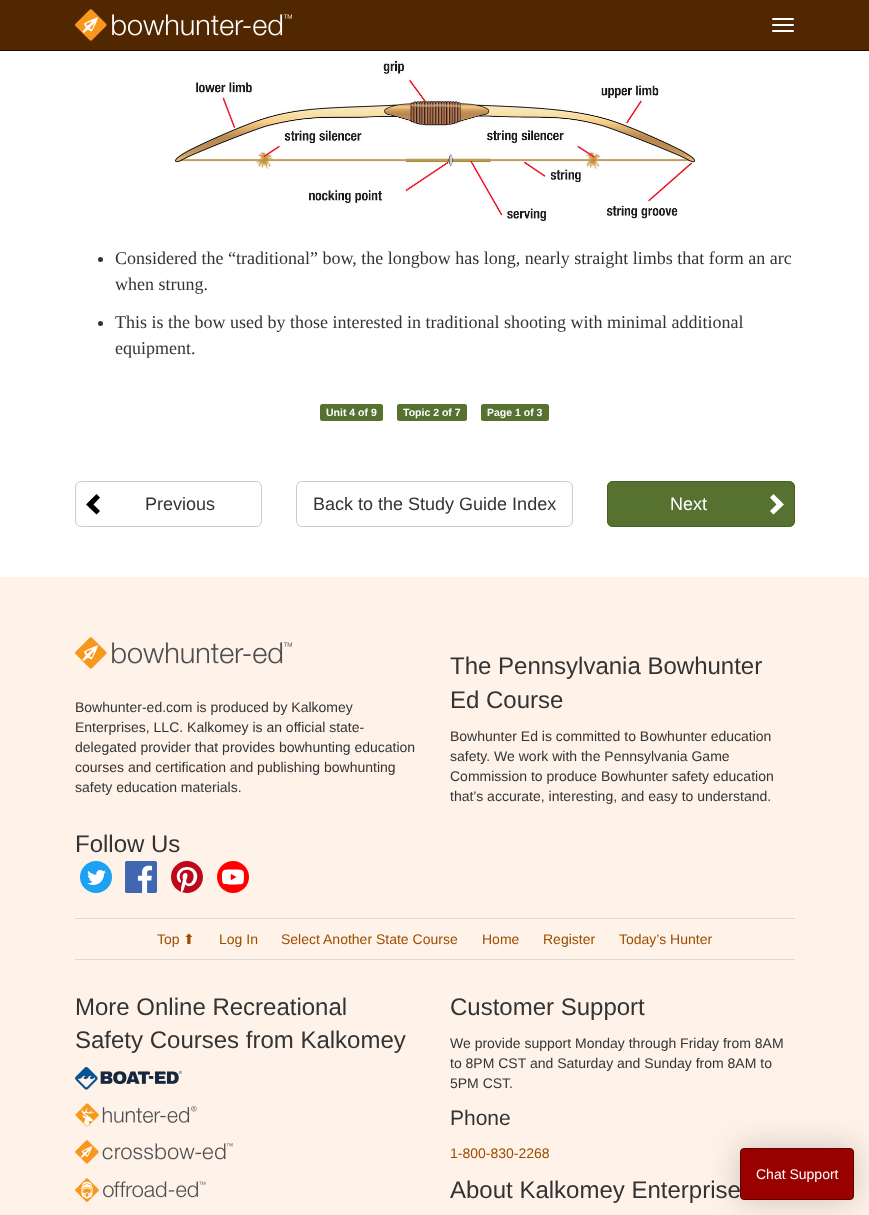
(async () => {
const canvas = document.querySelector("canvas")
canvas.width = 869
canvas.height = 1215
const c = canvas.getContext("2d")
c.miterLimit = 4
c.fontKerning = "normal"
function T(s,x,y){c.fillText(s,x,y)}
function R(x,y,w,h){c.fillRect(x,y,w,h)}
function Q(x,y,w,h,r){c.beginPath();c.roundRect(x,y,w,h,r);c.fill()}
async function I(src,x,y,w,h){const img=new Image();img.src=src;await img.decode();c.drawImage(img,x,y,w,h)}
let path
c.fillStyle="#fff3e9"
R(0,0,869,1215)
c.fillStyle="#502700"
R(0,0,869,50)
c.fillStyle="#1d0e00"
R(0,50,869,1)
await I("1.png",75,9,217,32)
c.fillStyle="#fff"
Q(772,18,22,2,1)
Q(772,24,22,2,1)
Q(772,30,22,2,1)
R(0,51,869,526)
await I("2.png",175,61,520,160)
c.fillStyle="#333"
c.beginPath()
c.arc(100.5,259.5,2.5,0,7)
c.fill()
c.font="18px Liberation Serif"
T("Considered the “traditional” bow, the longbow has long, nearly straight limbs that form an arc",115,264)
T("when strung.",115,290)
c.beginPath()
c.arc(100.5,323.5,2.5,0,7)
c.fill()
T("This is the bow used by those interested in traditional shooting with minimal additional",115,328)
T("equipment.",115,354)
c.fillStyle="#567130"
Q(320,404,63,17,2.5)
c.font="bold 10.5px Liberation Sans"
c.fillStyle="#fff"
T("Unit 4 of 9",326,416)
c.fillStyle="#567130"
Q(397,404,70,17,2.5)
c.fillStyle="#fff"
T("Topic 2 of 7",403,416)
c.fillStyle="#567130"
Q(481,404,68,17,2.5)
c.fillStyle="#fff"
T("Page 1 of 3",487,416)
c.fillStyle="#000"
path = new Path2D("M86 504.5l10.5-10.5l3.5 3.5l-6.5 7l6.5 6.5l-3.5 3.5z")
c.fill(path)
c.beginPath()
c.roundRect(75.5,481.5,186,45,5.5)
c.strokeStyle="#ccc"
c.stroke()
c.font="18px Liberation Sans"
c.fillStyle="#333"
T("Previous",145,510)
c.beginPath()
c.roundRect(296.5,481.5,276,45,5.5)
c.stroke()
T("Back to the Study Guide Index",313,510)
c.fillStyle="#567130"
Q(607,481,188,46,6)
c.fillStyle="#fff"
path = new Path2D("M784 504.5l-10.5-10.5l-3.5 3.5l6.5 7l-6.5 6.5l3.5 3.5z")
c.fill(path)
c.beginPath()
c.roundRect(607.5,481.5,187,45,5.5)
c.strokeStyle="#495f29"
c.stroke()
T("Next",670,510)
await I("3.png",75,637,217,32)
c.font="14px Liberation Sans"
c.fillStyle="#333"
T("Bowhunter-ed.com is produced by Kalkomey",75,712)
T("Enterprises, LLC. Kalkomey is an official state-",75,732)
T("delegated provider that provides bowhunting education",75,752)
T("courses and certification and publishing bowhunting",75,772)
T("safety education materials.",75,792)
c.font="24px Liberation Sans"
T("Follow Us",75,852)
await I("4.png",80,861,32,32)
await I("5.png",125,861,32,32)
await I("6.png",171,861,32,32)
await I("7.png",217,861,32,32)
T("The Pennsylvania Bowhunter",450,674)
T("Ed Course",450,708)
c.font="14px Liberation Sans"
T("Bowhunter Ed is committed to Bowhunter education",450,741)
T("safety. We work with the Pennsylvania Game",450,761)
T("Commission to produce Bowhunter safety education",450,781)
T("that’s accurate, interesting, and easy to understand.",450,801)
c.fillStyle="#d9d9d9"
R(75,918,720,1)
R(75,959,720,1)
c.fillStyle="#9c4c00"
T("Top",157,944)
c.font="14px DejaVu Sans"
T("⬆",183,944)
c.font="14px Liberation Sans"
T("Log In",219,944)
T("Select Another State Course",281,944)
T("Home",482,944)
T("Register",543,944)
T("Today’s Hunter",619,944)
c.font="24px Liberation Sans"
c.fillStyle="#333"
T("More Online Recreational",75,1015)
T("Safety Courses from Kalkomey",75,1048)
await I("8.png",75,1067,107,23)
await I("9.png",75,1103,122,24)
await I("10.png",75,1140,158,24)
await I("11.png",75,1178,131,24)
T("Customer Support",450,1015)
c.font="14px Liberation Sans"
T("We provide support Monday through Friday from 8AM",450,1048)
T("to 8PM CST and Saturday and Sunday from 8AM to",450,1068)
T("5PM CST.",450,1088)
c.font="21px Liberation Sans"
T("Phone",450,1125)
c.font="14px Liberation Sans"
c.fillStyle="#9c4c00"
T("1-800-830-2268",450,1158)
c.font="24px Liberation Sans"
c.fillStyle="#333"
T("About Kalkomey Enterprise",450,1198)
c.fillStyle="#00000033"
c.filter="blur(15px)"
c.beginPath()
c.roundRect(739,1147,116,54,5)
c.fill()
c.filter="none"
c.fillStyle="#900"
c.beginPath()
c.roundRect(740.5,1148.5,113,51,3.5)
c.fill()
c.strokeStyle="#600"
c.stroke()
c.font="14px Liberation Sans"
c.fillStyle="#fff"
T("Chat Support",756,1179)
})()
